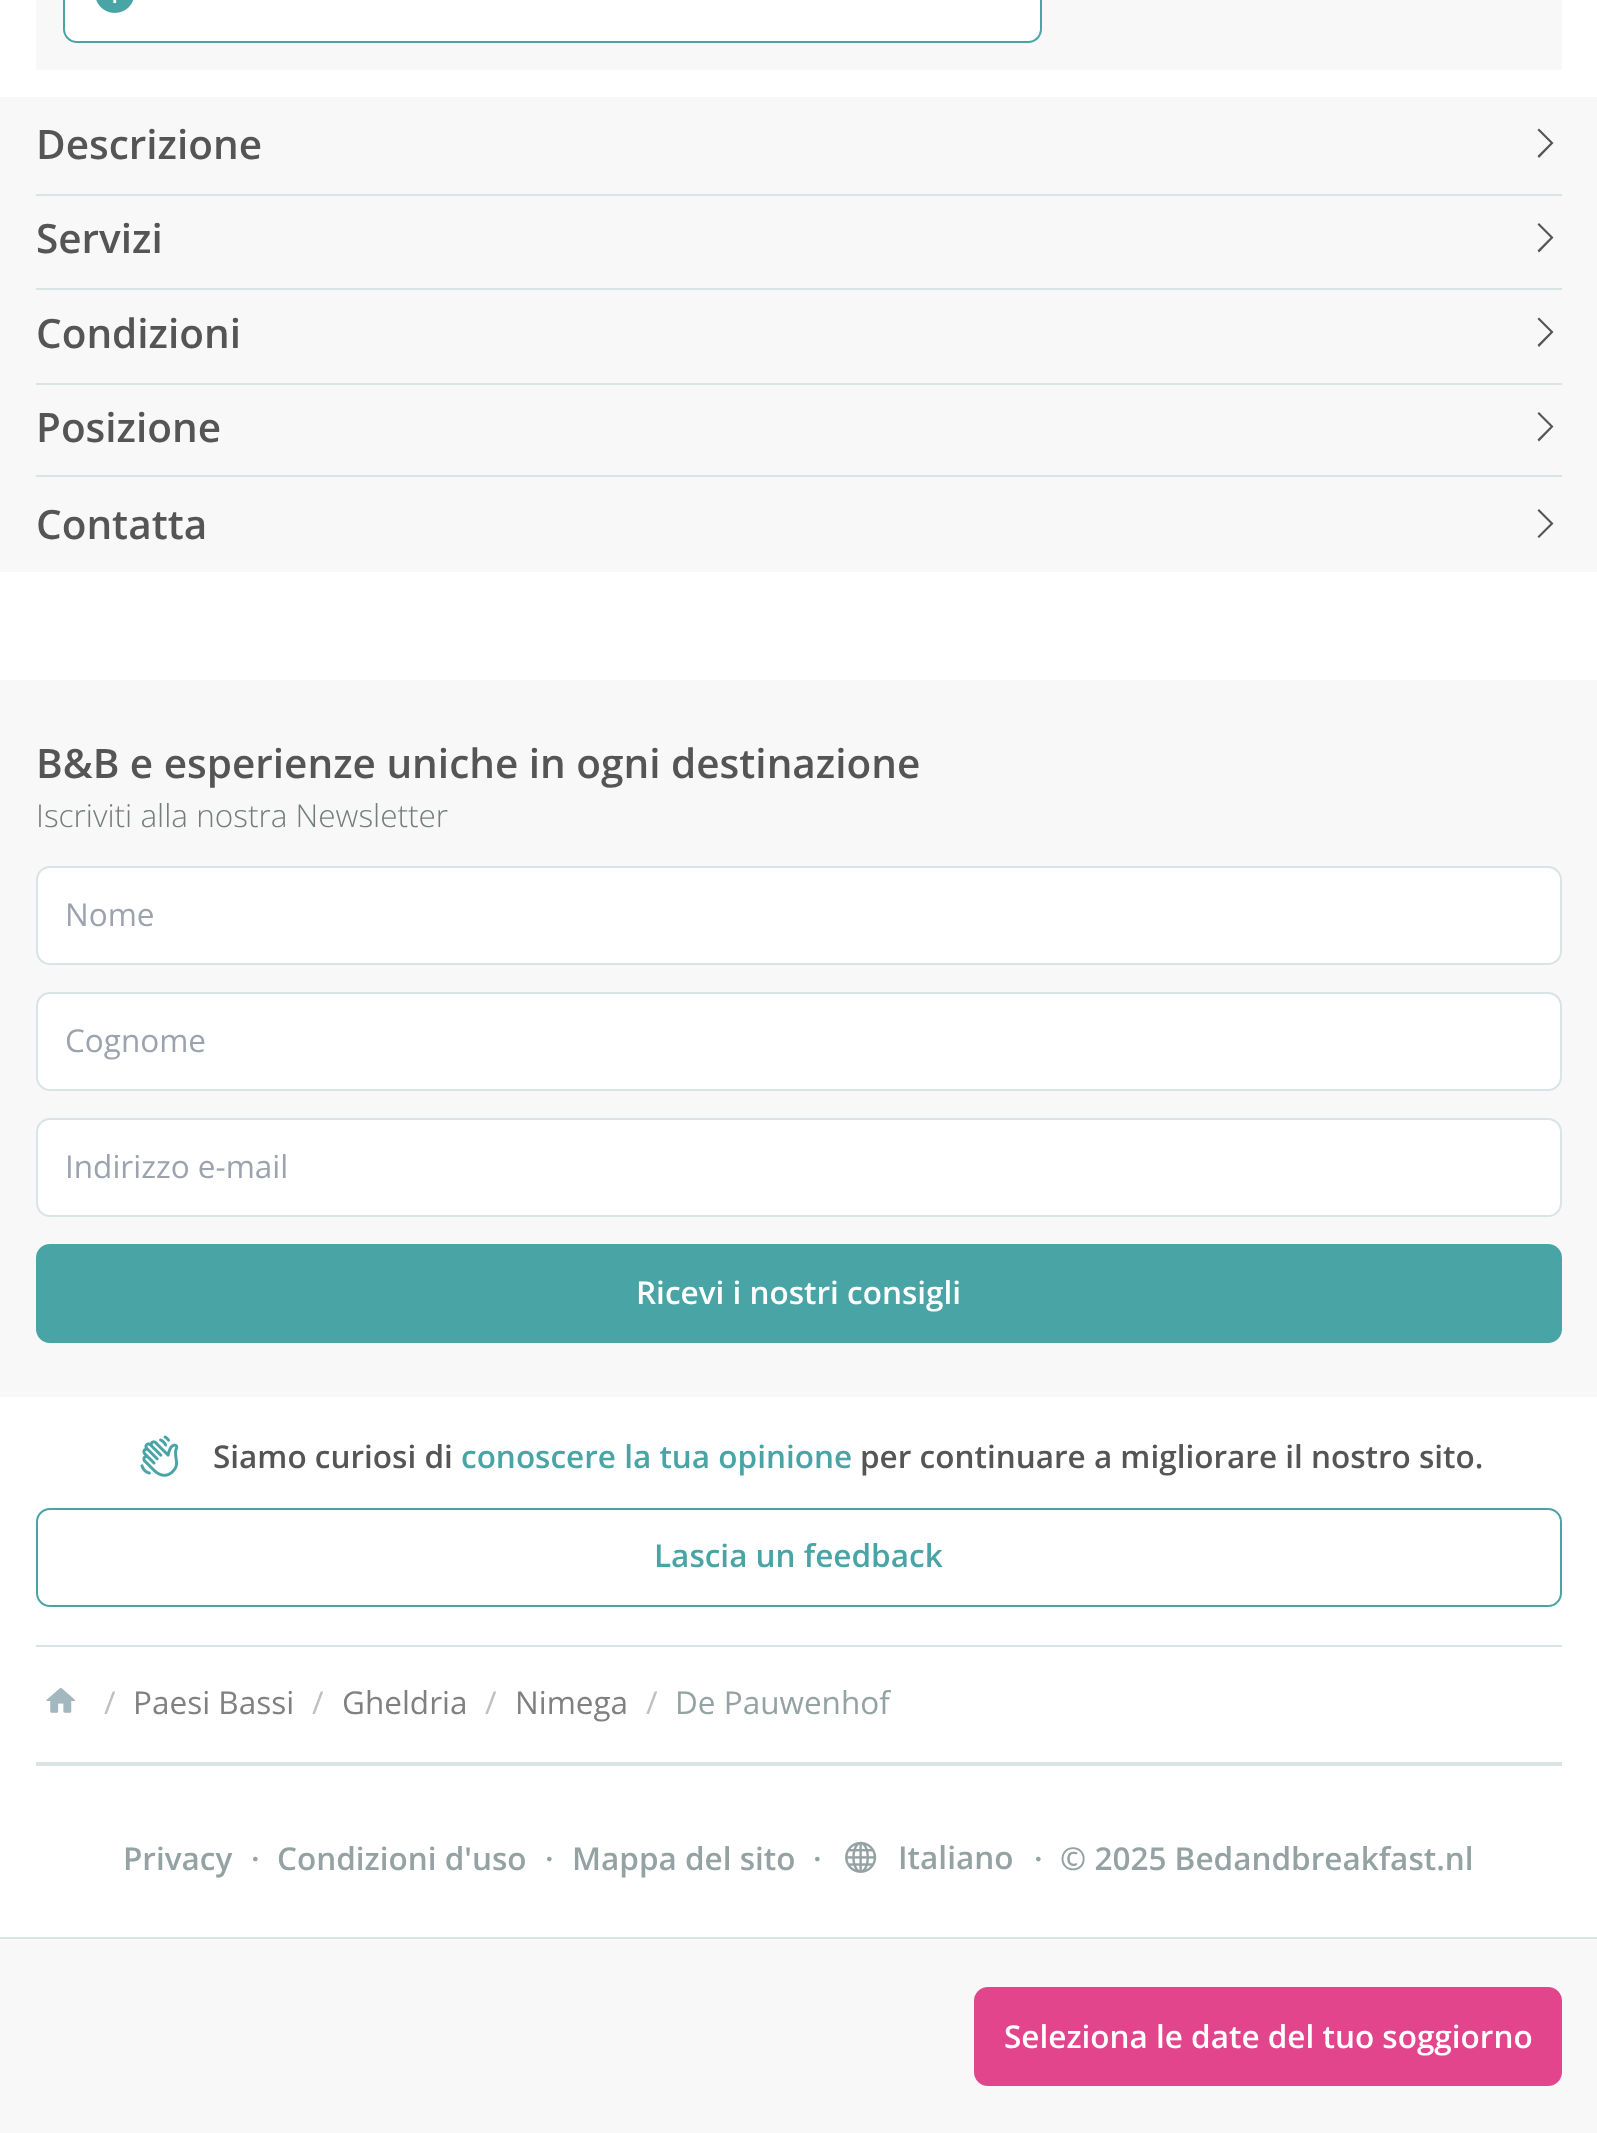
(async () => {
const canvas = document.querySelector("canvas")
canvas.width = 1597
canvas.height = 2133
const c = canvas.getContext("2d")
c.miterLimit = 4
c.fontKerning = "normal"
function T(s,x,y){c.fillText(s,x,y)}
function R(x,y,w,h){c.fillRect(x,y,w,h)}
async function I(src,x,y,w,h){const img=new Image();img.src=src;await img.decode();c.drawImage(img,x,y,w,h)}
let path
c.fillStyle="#fff"
R(0,0,1597,2133)
c.fillStyle="#f8f8f8"
R(36,0,1526,70)
c.fillStyle="#fff"
c.beginPath()
c.roundRect(64,-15,977,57,13)
c.fill()
c.strokeStyle="#49a4a6"
c.lineWidth=2
c.stroke()
await I("1.png",96,0,38,13)
c.fillStyle="#f8f8f8"
R(0,97,1597,475)
c.font="600 40.5px Open Sans"
c.fillStyle="#555"
T("Descrizione",36,159)
path = new Path2D("M1537.5 156l1.5 2l14.5-15l-14.5-14.5l-1.5 1.5l13 13z")
c.fill(path)
c.fillStyle="#d9e4e5"
R(36,194,1526,2)
c.fillStyle="#555"
T("Servizi",36,253)
path = new Path2D("M1537.5 250.5l1.5 2l14.5-15l-14.5-14.5l-1.5 1.5l13 13z")
c.fill(path)
c.fillStyle="#d9e4e5"
R(36,288,1526,2)
c.fillStyle="#555"
T("Condizioni",36,348)
path = new Path2D("M1537.5 345l1.5 2l14.5-15l-14.5-14.5l-1.5 1.5l13 13z")
c.fill(path)
c.fillStyle="#d9e4e5"
R(36,383,1526,2)
R(36,475,1526,2)
c.fillStyle="#555"
T("Posizione",36,442)
path = new Path2D("M1537.5 439.5l1.5 2l14.5-15l-14.5-14.5l-1.5 1.5l13 13z")
c.fill(path)
T("Contatta",36,539)
path = new Path2D("M1537.5 536.5l1.5 1.5l14.5-14.5l-14.5-14.5l-1.5 1.5l13 13z")
c.fill(path)
c.fillStyle="#f8f8f8"
R(0,1940,1597,193)
c.fillStyle="#d9e4e5"
R(0,1937,1597,2)
c.fillStyle="#e3458c"
c.beginPath()
c.roundRect(975,1988,586,97,13)
c.fill()
c.strokeStyle="#e3458c"
c.stroke()
c.font="600 31.5px Open Sans"
c.fillStyle="#fff"
T("Seleziona le date del tuo soggiorno",1004,2048)
c.fillStyle="#f8f8f8"
R(0,680,1597,717)
c.font="600 40.5px Open Sans"
c.fillStyle="#555"
T("B&B e esperienze uniche in ogni destinazione",36,778)
c.font="300 31.5px Open Sans"
c.fillStyle="#757c7c"
T("Iscriviti alla nostra Newsletter",36,827)
c.fillStyle="#fff"
c.beginPath()
c.roundRect(37,867,1524,97,13)
c.fill()
c.strokeStyle="#d9e4e5"
c.stroke()
c.font="31.5px Open Sans"
c.fillStyle="#9ca3af"
T("Nome",65,926)
c.fillStyle="#fff"
c.beginPath()
c.roundRect(37,993,1524,97,13)
c.fill()
c.stroke()
c.fillStyle="#9ca3af"
T("Cognome",65,1052)
c.fillStyle="#fff"
c.beginPath()
c.roundRect(37,1119,1524,97,13)
c.fill()
c.stroke()
c.fillStyle="#9ca3af"
T("Indirizzo e-mail",65,1178)
c.fillStyle="#49a4a6"
c.beginPath()
c.roundRect(37,1245,1524,97,13)
c.fill()
c.strokeStyle="#49a4a6"
c.stroke()
c.font="600 31.5px Open Sans"
c.fillStyle="#fff"
T("Ricevi i nostri consigli",636,1304)
await I("2.png",140,1435,39,42)
c.fillStyle="#555"
T("Siamo curiosi di",213,1468)
c.fillStyle="#49a4a6"
T("conoscere la tua opinione",461,1468)
c.fillStyle="#555"
T("per continuare a migliorare il nostro sito.",860,1468)
c.beginPath()
c.roundRect(37,1509,1524,97,13)
c.stroke()
c.fillStyle="#49a4a6"
T("Lascia un feedback",654,1567)
c.fillStyle="#d9e4e5"
R(36,1645,1526,2)
await I("3.png",46,1687,30,26)
c.font="31.5px Open Sans"
c.fillStyle="#bfbfbf"
T("/",104,1714)
c.fillStyle="#808080"
T("Paesi Bassi",133,1714)
c.fillStyle="#bfbfbf"
T("/",312,1714)
c.fillStyle="#808080"
T("Gheldria",342,1714)
c.fillStyle="#bfbfbf"
T("/",485,1714)
c.fillStyle="#808080"
T("Nimega",515,1714)
c.fillStyle="#bfbfbf"
T("/",646,1714)
c.fillStyle="#95a2a3"
T("De Pauwenhof",675,1714)
c.fillStyle="#d9e4e5"
R(36,1762,1526,4)
c.font="600 31.5px Open Sans"
c.fillStyle="#95a2a3"
T("Privacy",123,1870)
T("·",251,1870)
T("Condizioni d'uso",277,1870)
T("·",545,1870)
T("Mappa del sito",572,1870)
T("·",813,1870)
await I("4.png",845,1841,32,32)
T("Italiano",898,1869)
T("·",1034,1870)
T("© 2025 Bedandbreakfast.nl",1060,1870)
})()
